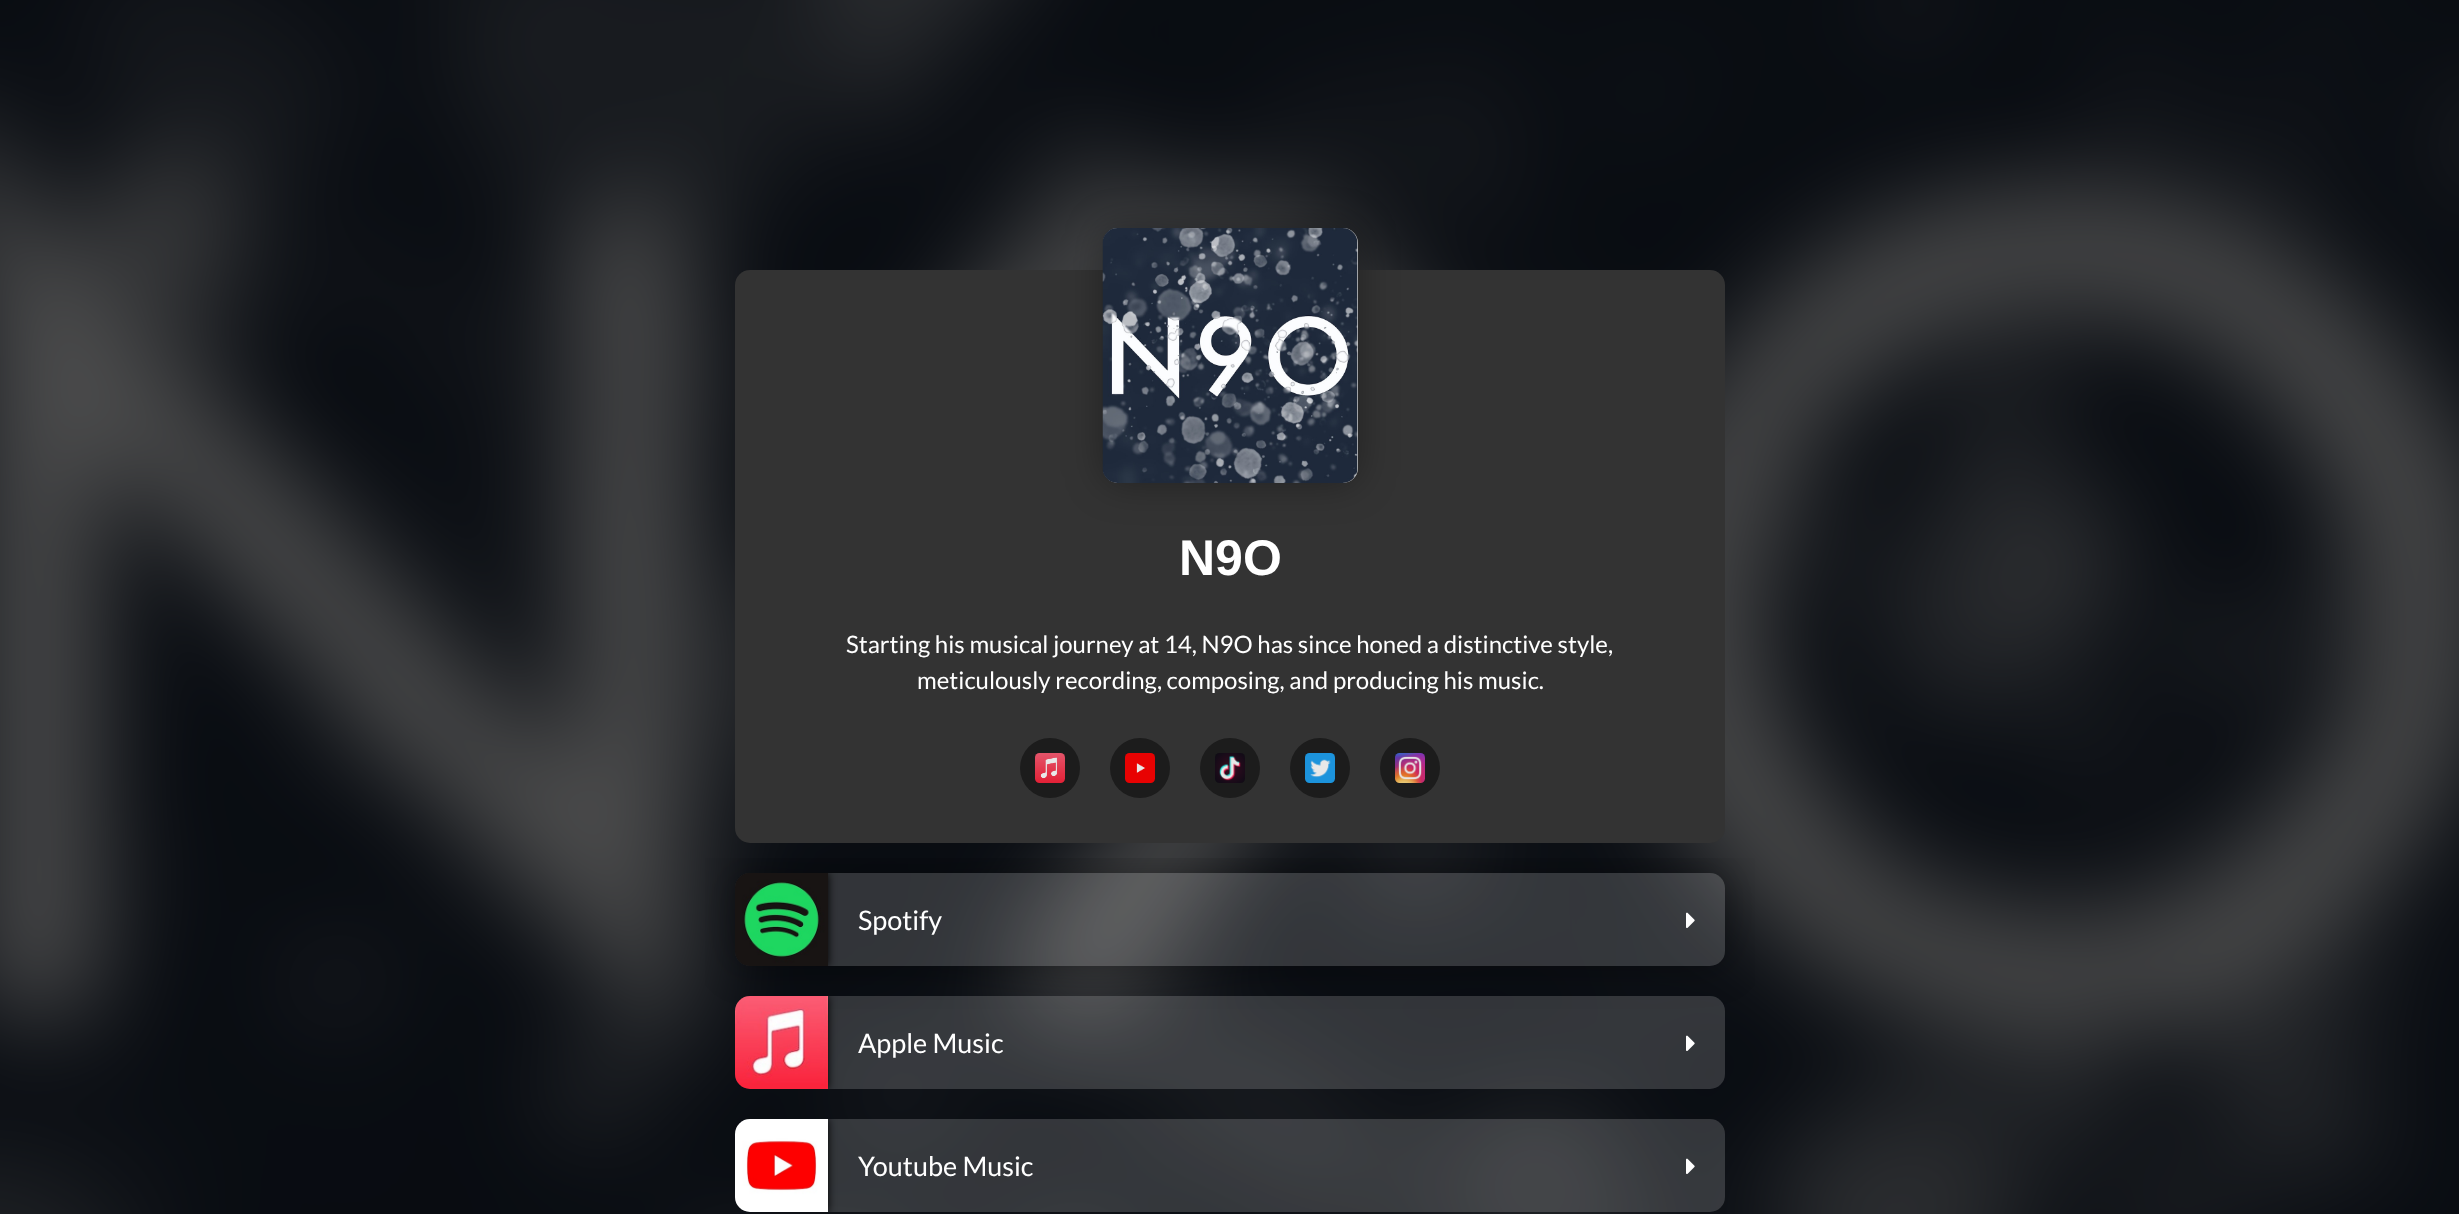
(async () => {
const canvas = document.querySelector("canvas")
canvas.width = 2459
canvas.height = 1214
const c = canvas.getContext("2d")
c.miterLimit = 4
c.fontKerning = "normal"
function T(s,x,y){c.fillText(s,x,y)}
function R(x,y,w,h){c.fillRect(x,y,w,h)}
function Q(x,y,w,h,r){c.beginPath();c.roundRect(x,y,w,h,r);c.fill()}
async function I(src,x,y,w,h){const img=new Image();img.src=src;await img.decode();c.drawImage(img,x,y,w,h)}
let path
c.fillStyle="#000"
R(0,0,2459,1214)
await I("1.png",0,0,2459,1214)
c.save()
c.beginPath()
c.rect(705,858,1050,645)
c.clip()
path = new Path2D("M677 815h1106v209h-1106zm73 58h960c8.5 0 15 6.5 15 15v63c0 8.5-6.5 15-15 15h-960c-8.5 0-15-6.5-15-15v-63c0-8.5 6.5-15 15-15z")
c.clip(path,"evenodd")
c.fillStyle="#00000059"
c.filter="blur(19px)"
c.beginPath()
c.roundRect(735,873,990,93,15)
c.fill()
c.filter="none"
c.restore()
c.fillStyle="#333"
Q(735,270,990,573,15)
c.fillStyle="#00000059"
c.filter="blur(19px)"
c.beginPath()
c.roundRect(1103,228,255,255,15)
c.fill()
c.filter="none"
c.fillStyle="#ccc"
Q(1103,228,255,255,15)
await I("2.png",1102,228,256,255)
c.font="bold 50px Liberation Sans"
c.fillStyle="#fff"
T("N9O",1179,575)
c.font="24px Lato"
T("Starting his musical journey at 14, N9O has since honed a distinctive style,",846,653)
T("meticulously recording, composing, and producing his music.",917,689)
c.fillStyle="#1c1c1c"
c.beginPath()
c.arc(1050,768,30,0,7)
c.fill()
await I("3.png",1035,753,30,30)
c.beginPath()
c.arc(1140,768,30,0,7)
c.fill()
await I("4.png",1125,753,30,30)
c.beginPath()
c.arc(1230,768,30,0,7)
c.fill()
await I("5.png",1215,753,30,30)
c.beginPath()
c.arc(1320,768,30,0,7)
c.fill()
await I("6.png",1305,753,30,30)
c.beginPath()
c.arc(1410,768,30,0,7)
c.fill()
await I("7.png",1395,753,30,30)
c.fillStyle="#ffffff2b"
Q(735,873,990,93,15)
c.save()
c.beginPath()
c.roundRect(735,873,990,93,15)
c.clip()
c.fillStyle="#000"
c.filter="blur(4px)"
c.beginPath()
c.rect(735,873,93,93)
c.fill()
c.filter="none"
c.restore()
await I("8.png",735,873,93,93)
c.font="27px Lato"
c.fillStyle="#fff"
T("Spotify",858,930)
await I("9.png",1686,912,9,16)
c.fillStyle="#ffffff2b"
Q(735,996,990,93,15)
c.save()
c.beginPath()
c.roundRect(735,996,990,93,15)
c.clip()
c.fillStyle="#000"
c.filter="blur(4px)"
c.beginPath()
c.rect(735,996,93,93)
c.fill()
c.filter="none"
c.restore()
await I("10.png",735,996,93,93)
c.fillStyle="#fff"
T("Apple Music",858,1053)
await I("11.png",1686,1035,9,16)
c.fillStyle="#ffffff2b"
Q(735,1119,990,93,15)
c.save()
c.beginPath()
c.roundRect(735,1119,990,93,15)
c.clip()
c.fillStyle="#000"
c.filter="blur(4px)"
c.beginPath()
c.rect(735,1119,93,93)
c.fill()
c.filter="none"
c.restore()
await I("12.png",735,1119,93,93)
c.fillStyle="#fff"
T("Youtube Music",858,1176)
await I("13.png",1686,1158,9,16)
})()
